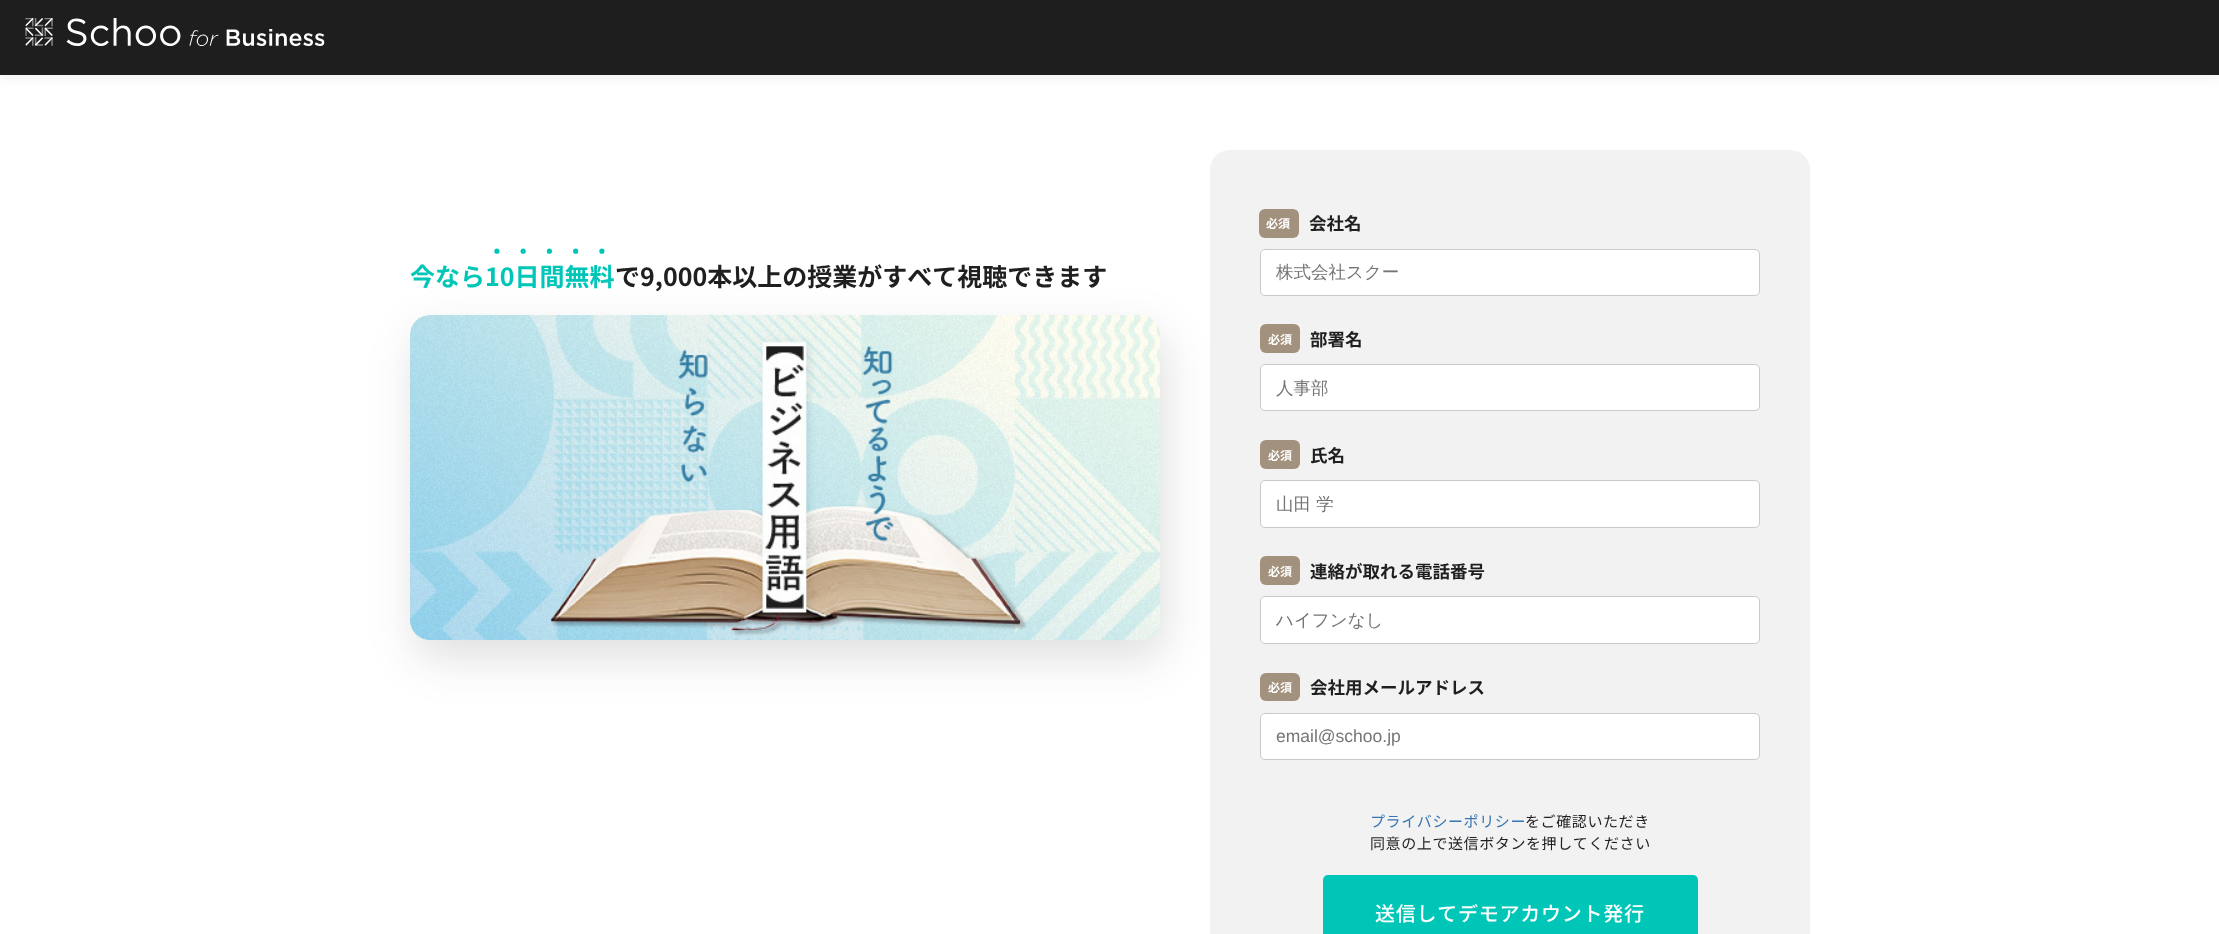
(async () => {
const canvas = document.querySelector("canvas")
canvas.width = 2219
canvas.height = 934
const c = canvas.getContext("2d")
c.miterLimit = 4
c.fontKerning = "normal"
function T(s,x,y){c.fillText(s,x,y)}
function R(x,y,w,h){c.fillRect(x,y,w,h)}
function Q(x,y,w,h,r){c.beginPath();c.roundRect(x,y,w,h,r);c.fill()}
async function I(src,x,y,w,h){const img=new Image();img.src=src;await img.decode();c.drawImage(img,x,y,w,h)}
let path
c.fillStyle="#fff"
R(0,0,2219,934)
c.fillStyle="#1e1e1e0d"
c.filter="blur(5px)"
c.beginPath()
c.rect(0,5,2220,75)
c.fill()
c.filter="none"
c.fillStyle="#1e1e1e"
R(0,0,2219,75)
await I("1.png",25,18,300,28)
c.fillStyle="#f2f2f2"
Q(1210,150,600,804,20)
c.fillStyle="#1e1e1e24"
c.filter="blur(22.5px)"
c.beginPath()
c.roundRect(415,333,750,325,20)
c.fill()
c.filter="none"
c.fillStyle="#fff"
Q(410,315,750,325,20)
await I("2.png",410,315,750,325)
c.font="bold 25px Noto Sans JP"
c.fillStyle="#00c6b8"
T("今なら10日間無料",410,286)
path = new Path2D("M496.9 251.2h105.2")
c.strokeStyle="#00c6b8"
c.lineWidth=5.2
c.lineCap="round"
c.setLineDash([0,26.25])
c.stroke(path)
c.fillStyle="#1f1f1f"
T("で9,000本以上の授業がすべて視聴できます",615,286)
c.fillStyle="#a2917d"
Q(1259,209,40,29,6)
c.font="bold 12px Noto Sans JP"
c.fillStyle="#fff"
T("必須",1266,228)
c.font="bold 17.5px Noto Sans JP"
c.fillStyle="#1f1f1f"
T("会社名",1309,230)
c.fillStyle="#fff"
c.beginPath()
c.roundRect(1260.5,249.5,499,46,4.5)
c.fill()
c.strokeStyle="#cacaca"
c.lineWidth=1
c.setLineDash([])
c.stroke()
c.font="500 17.5px WenQuanYi Zen Hei"
c.fillStyle="#757575"
T("株式会社スクー",1276,278)
c.fillStyle="#a2917d"
Q(1260,324,40,29,6)
c.font="bold 12px Noto Sans JP"
c.fillStyle="#fff"
T("必須",1268,344)
c.font="bold 17.5px Noto Sans JP"
c.fillStyle="#1f1f1f"
T("部署名",1310,346)
c.fillStyle="#fff"
c.beginPath()
c.roundRect(1260.5,364.5,499,46,4.5)
c.fill()
c.stroke()
c.font="500 17.5px WenQuanYi Zen Hei"
c.fillStyle="#757575"
T("人事部",1276,394)
c.fillStyle="#a2917d"
Q(1260,440,40,29,6)
c.font="bold 12px Noto Sans JP"
c.fillStyle="#fff"
T("必須",1268,460)
c.font="bold 17.5px Noto Sans JP"
c.fillStyle="#1f1f1f"
T("氏名",1310,462)
c.fillStyle="#fff"
c.beginPath()
c.roundRect(1260.5,480.5,499,47,4.5)
c.fill()
c.stroke()
c.font="500 17.5px WenQuanYi Zen Hei"
c.fillStyle="#757575"
T("山田 学",1276,510)
c.fillStyle="#a2917d"
Q(1260,556,40,29,6)
c.font="bold 12px Noto Sans JP"
c.fillStyle="#fff"
T("必須",1268,576)
c.font="bold 17.5px Noto Sans JP"
c.fillStyle="#1f1f1f"
T("連絡が取れる電話番号",1310,578)
c.fillStyle="#fff"
c.beginPath()
c.roundRect(1260.5,596.5,499,47,4.5)
c.fill()
c.stroke()
c.font="500 17.5px WenQuanYi Zen Hei"
c.fillStyle="#757575"
T("ハイフンなし",1276,626)
c.fillStyle="#a2917d"
Q(1260,673,40,28,6)
c.font="bold 12px Noto Sans JP"
c.fillStyle="#fff"
T("必須",1268,692)
c.font="bold 17.5px Noto Sans JP"
c.fillStyle="#1f1f1f"
T("会社用メールアドレス",1310,694)
c.fillStyle="#fff"
c.beginPath()
c.roundRect(1260.5,713.5,499,46,4.5)
c.fill()
c.stroke()
c.font="17.5px Liberation Sans"
c.fillStyle="#757575"
T("email@schoo.jp",1276,742)
c.letterSpacing="0.6px"
c.font="15px Noto Sans JP"
c.fillStyle="#3875b2"
T("プライバシーポリシー",1370,827)
c.fillStyle="#1f1f1f"
T("をご確認いただき",1525,827)
T("同意の上で送信ボタンを押してください",1370,849)
c.fillStyle="#00c6b8"
Q(1323,875,375,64,5)
c.letterSpacing="0.75px"
c.font="500 20px Noto Sans JP"
c.fillStyle="#fff"
T("送信してデモアカウント発行",1375,921)
})()
